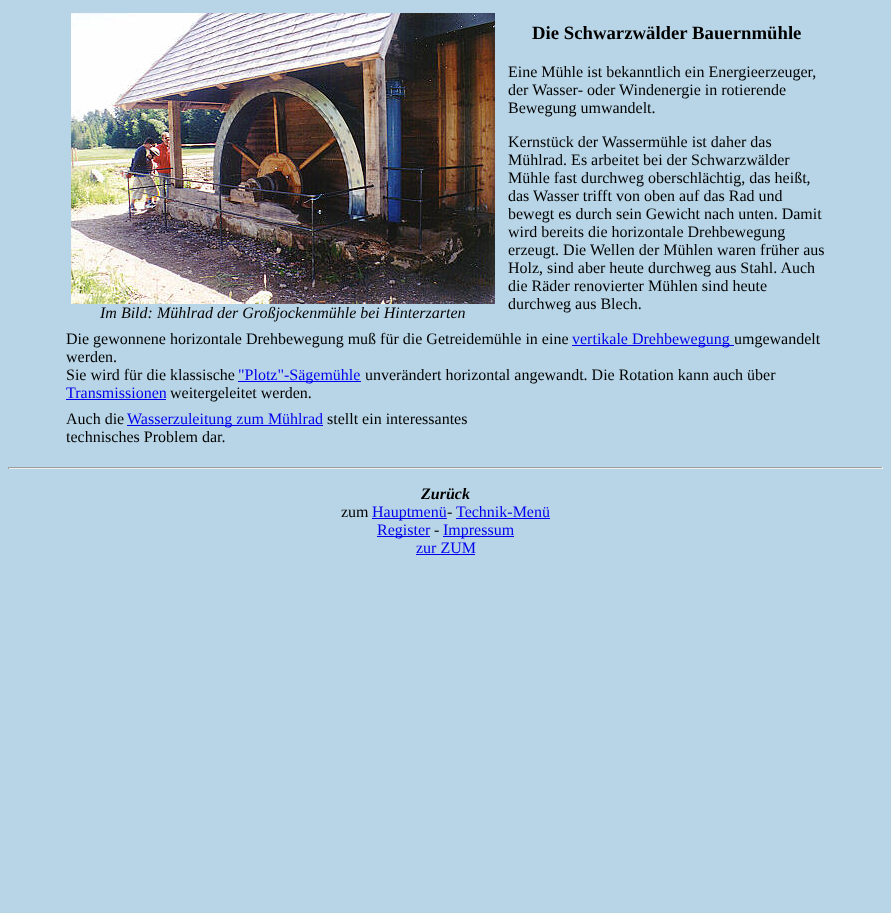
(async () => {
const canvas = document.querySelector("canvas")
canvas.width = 891
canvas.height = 913
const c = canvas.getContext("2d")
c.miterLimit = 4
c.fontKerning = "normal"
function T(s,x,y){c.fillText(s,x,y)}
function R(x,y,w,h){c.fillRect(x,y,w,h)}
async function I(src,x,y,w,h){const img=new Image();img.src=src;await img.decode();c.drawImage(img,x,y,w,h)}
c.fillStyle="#b7d5e6"
R(0,0,891,913)
await I("1.png",71,13,424,291)
c.font="italic 16px Liberation Serif"
c.fillStyle="#000"
T("Im Bild: Mühlrad der Großjockenmühle bei Hinterzarten",100,318)
c.font="bold 18.75px Liberation Serif"
T("Die Schwarzwälder Bauernmühle",532,39)
c.font="16px Liberation Serif"
T("Eine Mühle ist bekanntlich ein Energieerzeuger,",508,77)
T("der Wasser- oder Windenergie in rotierende",508,95)
T("Bewegung umwandelt.",508,113)
T("Kernstück der Wassermühle ist daher das",508,147)
T("Mühlrad. Es arbeitet bei der Schwarzwälder",508,165)
T("Mühle fast durchweg oberschlächtig, das heißt,",508,183)
T("das Wasser trifft von oben auf das Rad und",508,201)
T("bewegt es durch sein Gewicht nach unten. Damit",508,219)
T("wird bereits die horizontale Drehbewegung",508,237)
T("erzeugt. Die Wellen der Mühlen waren früher aus",508,255)
T("Holz, sind aber heute durchweg aus Stahl. Auch",508,273)
T("die Räder renovierter Mühlen sind heute",508,291)
T("durchweg aus Blech.",508,309)
T("Die gewonnene horizontale Drehbewegung muß für die Getreidemühle in eine",66,344)
c.fillStyle="#00e"
R(572,345,162,1)
T("vertikale Drehbewegung",572,344)
c.fillStyle="#000"
T("umgewandelt",734,344)
T("werden.",66,362)
T("Sie wird für die klassische",66,380)
c.fillStyle="#00e"
R(238,381,123,1)
T("\"Plotz\"-Sägemühle",238,380)
c.fillStyle="#000"
T("unverändert horizontal angewandt. Die Rotation kann auch über",365,380)
c.fillStyle="#00e"
T("Transmissionen",66,398)
R(66,399,100,1)
c.fillStyle="#000"
T("weitergeleitet werden.",170,398)
T("Auch die",66,424)
c.fillStyle="#00e"
R(127,425,196,1)
T("Wasserzuleitung zum Mühlrad",127,424)
c.fillStyle="#000"
T("stellt ein interessantes",327,424)
T("technisches Problem dar.",66,442)
c.fillStyle="#9f9f9f"
R(8,467,875,1)
c.fillStyle="#eee"
R(882,467,1,2)
R(8,468,875,1)
c.fillStyle="#9f9f9f"
R(8,467,1,2)
c.font="italic bold 16px Liberation Serif"
c.fillStyle="#000"
T("Zurück",421,499)
c.font="16px Liberation Serif"
T("zum",341,517)
c.fillStyle="#00e"
R(372,518,75,1)
T("Hauptmenü",372,517)
c.fillStyle="#000"
T("-",447,517)
c.fillStyle="#00e"
T("Technik-Menü",456,517)
R(456,518,94,1)
R(377,536,53,1)
T("Register",377,535)
c.fillStyle="#000"
T("-",434,535)
c.fillStyle="#00e"
R(443,536,71,1)
T("Impressum",443,535)
T("zur ZUM",416,553)
R(416,554,59,1)
})()
